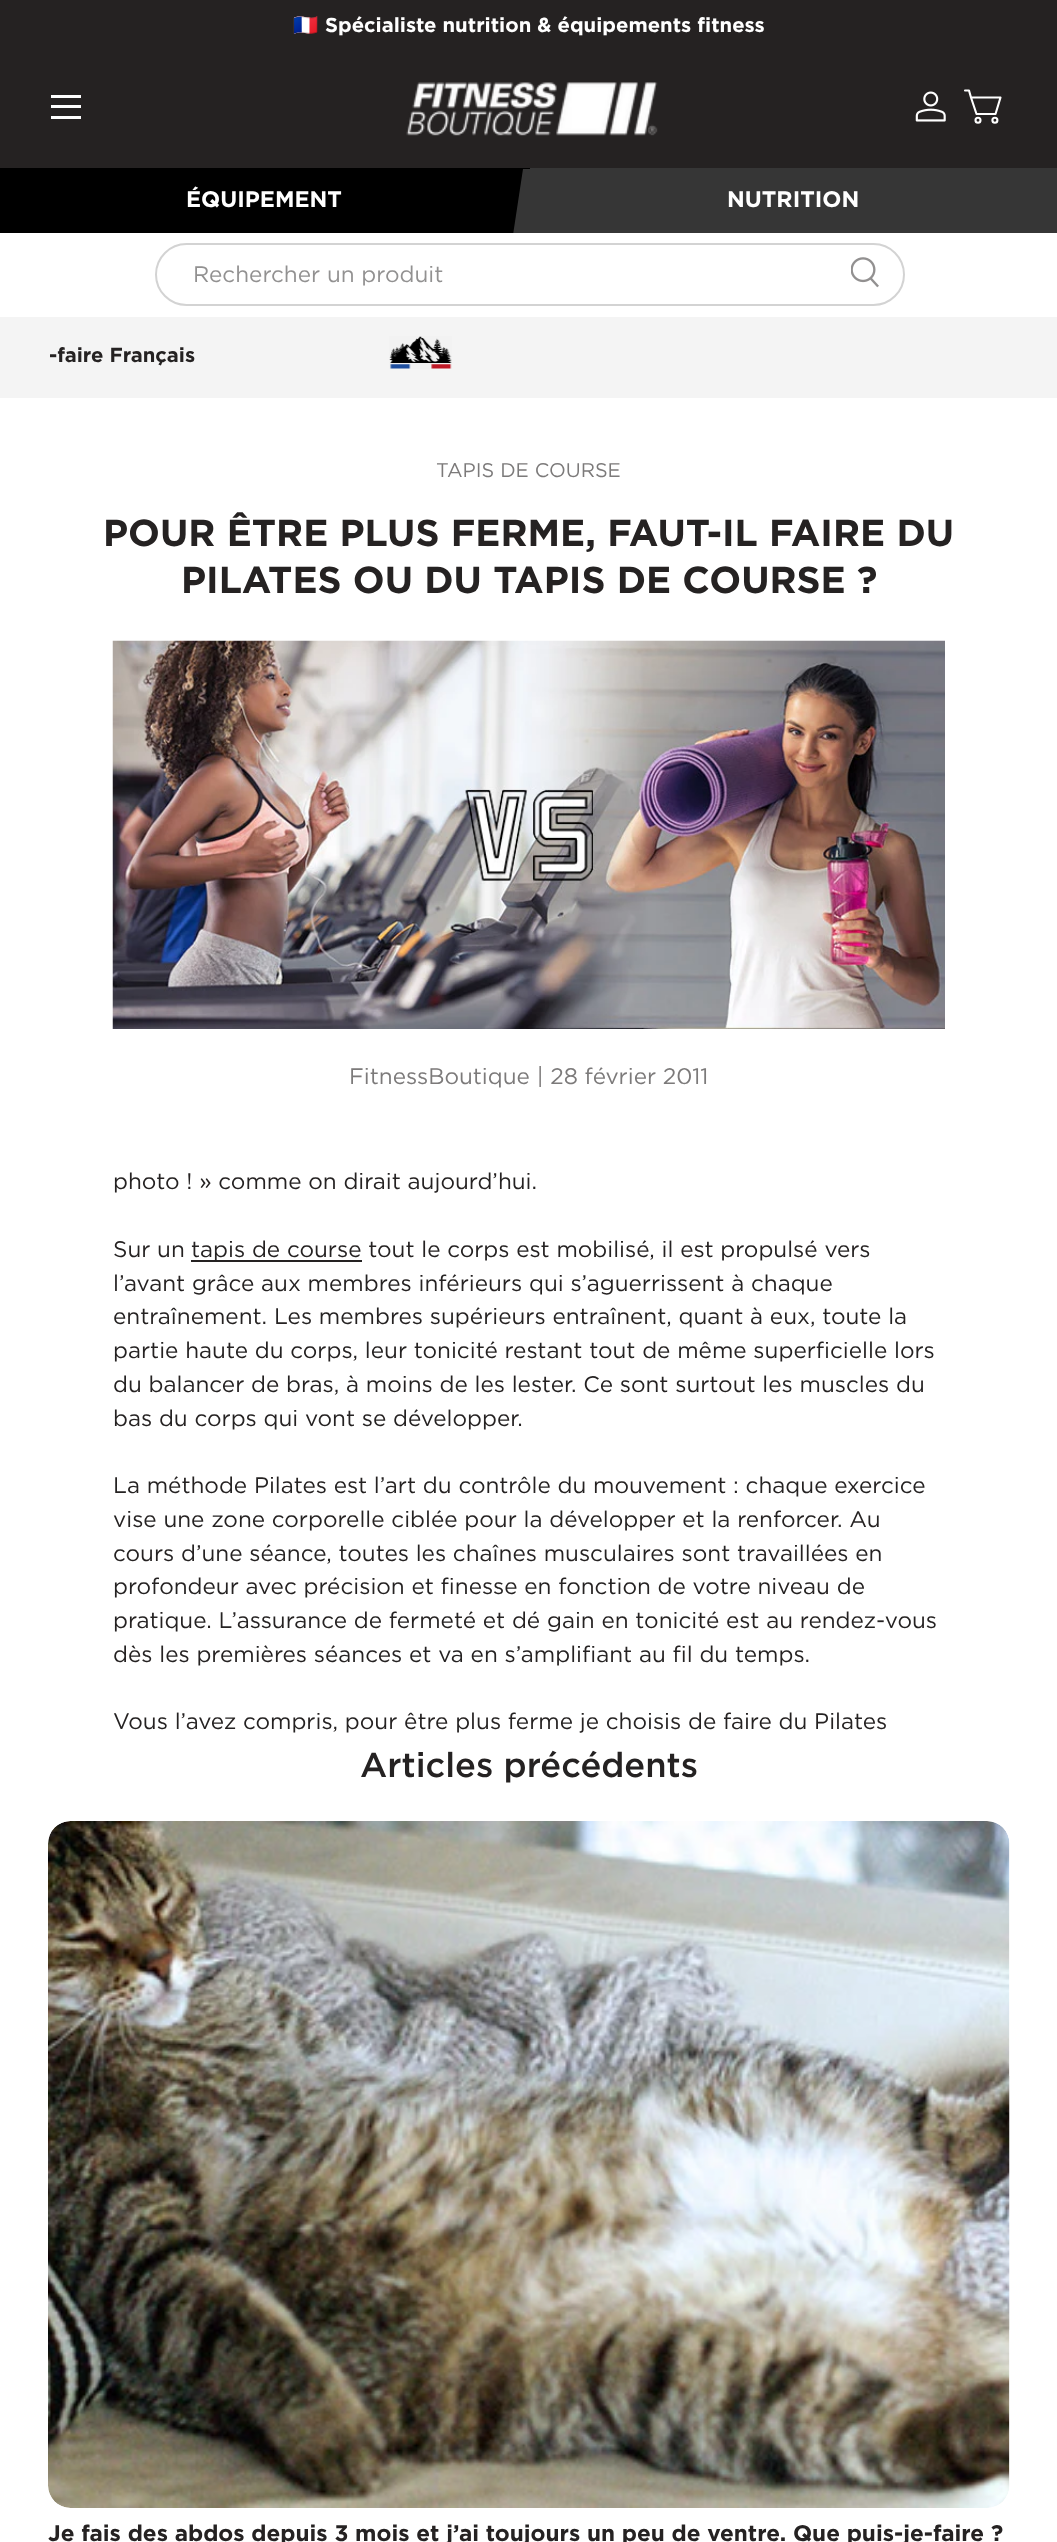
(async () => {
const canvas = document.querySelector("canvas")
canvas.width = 1057
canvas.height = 2542
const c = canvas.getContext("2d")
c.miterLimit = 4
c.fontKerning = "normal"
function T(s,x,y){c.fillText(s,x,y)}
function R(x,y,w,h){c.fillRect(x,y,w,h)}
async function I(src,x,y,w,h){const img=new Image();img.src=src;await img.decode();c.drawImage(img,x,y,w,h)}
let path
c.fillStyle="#fff"
R(0,0,1057,2542)
c.fillStyle="#252222"
R(0,0,1057,168)
c.font="20.25px Noto Color Emoji"
c.fillStyle="#fff"
T("🇫🇷",293,32)
c.font="bold 20.25px Gotham"
T("Spécialiste nutrition & équipements fitness",325,32)
R(51,95,30,3)
R(51,116,30,3)
R(51,105,30,3)
await I("1.png",406,82,252,54)
await I("2.png",915,91,31,31)
path = new Path2D("M965 90.5h4l2 7m0 0l5.5 16.5h19l5-16.5z")
c.strokeStyle="#fff"
c.lineWidth=2.1
c.lineCap="round"
c.lineJoin="round"
c.stroke(path)
c.beginPath()
c.arc(978,120.2,2.5,0,7)
c.stroke()
c.beginPath()
c.arc(994.9,120.2,2.5,0,7)
c.stroke()
c.fillStyle="#000"
R(0,168,530,65)
c.font="bold 22.5px Gotham"
c.fillStyle="#fff"
T("ÉQUIPEMENT",186,207)
c.save()
c.beginPath()
c.rect(512,168,24,65)
c.clip()
c.fillStyle="#363636"
path = new Path2D("M531 235v-66h-8l-10 66z")
c.fill(path)
c.restore()
c.fillStyle="#363636"
R(530,168,527,65)
c.fillStyle="#fff"
T("NUTRITION",727,207)
c.beginPath()
c.roundRect(156,244,748,61,30.5)
c.strokeStyle="#d3d3d3"
c.lineWidth=2
c.lineJoin="miter"
c.stroke()
c.font="22.5px Gotham"
c.fillStyle="#929191"
T("Rechercher un produit",193,282)
await I("3.png",851,257,28,31)
c.fillStyle="#f4f4f4"
R(0,317,1057,81)
c.font="bold 20.25px Gotham"
c.fillStyle="#252222"
T("-faire Français",49,362)
await I("4.png",389,336,63,33)
c.font="19.75px Gotham"
c.fillStyle="#7c7a7a"
T("TAPIS DE COURSE",436,477)
c.font="bold 37.5px Gotham"
c.fillStyle="#252222"
T("POUR ÊTRE PLUS FERME, FAUT-IL FAIRE DU",103,546)
T("PILATES OU DU TAPIS DE COURSE ?",181,593)
await I("5.png",112,640,833,389)
c.font="22.5px Gotham"
c.fillStyle="#7c7a7a"
T("FitnessBoutique | 28 février 2011",349,1084)
c.fillStyle="#252222"
T("photo ! » comme on dirait aujourd’hui.",113,1189)
T("Sur un",113,1257)
R(191,1260,171,2)
T("tapis de course tout le corps est mobilisé, il est propulsé vers",191,1257)
T("l’avant grâce aux membres inférieurs qui s’aguerrissent à chaque",113,1291)
T("entraînement. Les membres supérieurs entraînent, quant à eux, toute la",113,1324)
T("partie haute du corps, leur tonicité restant tout de même superficielle lors",113,1358)
T("du balancer de bras, à moins de les lester. Ce sont surtout les muscles du",113,1392)
T("bas du corps qui vont se développer.",113,1426)
T("La méthode Pilates est l’art du contrôle du mouvement : chaque exercice",113,1493)
T("vise une zone corporelle ciblée pour la développer et la renforcer. Au",113,1527)
T("cours d’une séance, toutes les chaînes musculaires sont travaillées en",113,1561)
T("profondeur avec précision et finesse en fonction de votre niveau de",113,1594)
T("pratique. L’assurance de fermeté et dé gain en tonicité est au rendez-vous",113,1628)
T("dès les premières séances et va en s’amplifiant au fil du temps.",113,1662)
T("Vous l’avez compris, pour être plus ferme je choisis de faire du Pilates",113,1729)
c.font="500 34.5px Gotham"
T("Articles précédents",360,1777)
await I("6.png",48,1821,962,687)
c.font="bold 22.5px Gotham"
T("Je fais des abdos depuis 3 mois et j’ai toujours un peu de ventre. Que puis-je-faire ?",48,2541)
})()
